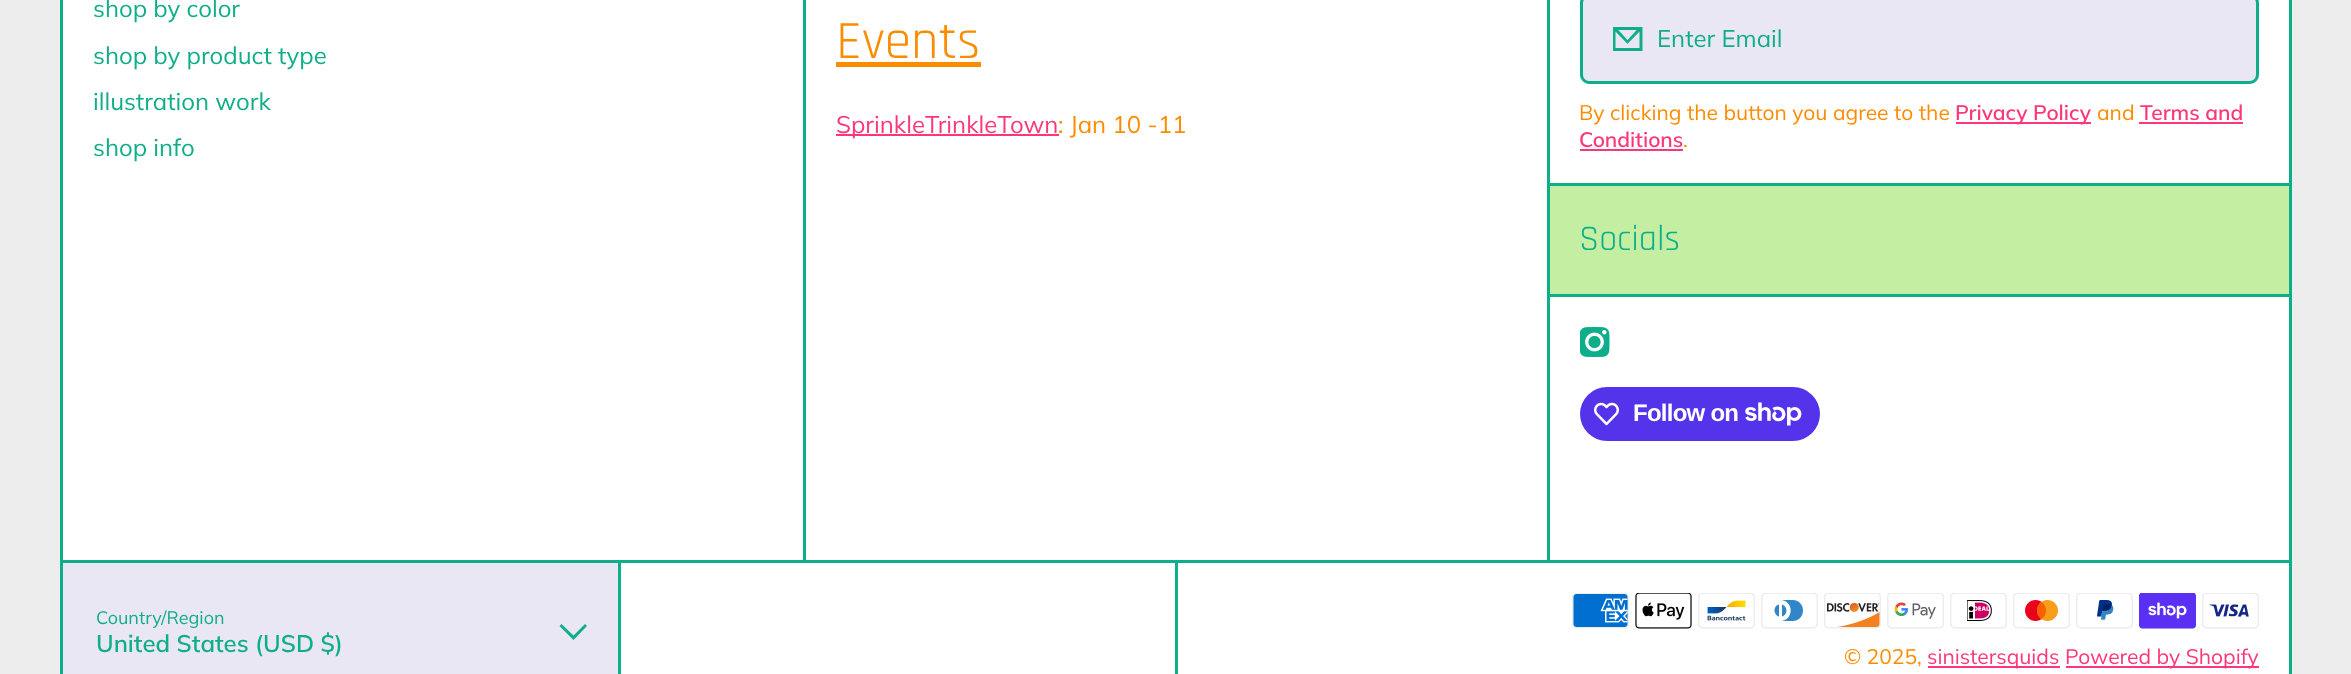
(async () => {
const canvas = document.querySelector("canvas")
canvas.width = 2351
canvas.height = 674
const c = canvas.getContext("2d")
c.miterLimit = 4
c.fontKerning = "normal"
function T(s,x,y){c.fillText(s,x,y)}
function R(x,y,w,h){c.fillRect(x,y,w,h)}
function Q(x,y,w,h,r){c.beginPath();c.roundRect(x,y,w,h,r);c.fill()}
async function I(src,x,y,w,h){const img=new Image();img.src=src;await img.decode();c.drawImage(img,x,y,w,h)}
let path
c.fillStyle="#ededed"
R(0,0,2351,674)
c.fillStyle="#fff"
c.beginPath()
c.rect(61.5,-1.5,743,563)
c.fill()
c.strokeStyle="#0fae8a"
c.lineWidth=3
c.stroke()
c.font="24px Muli"
c.fillStyle="#0fae8a"
T("shop by color",93,17)
T("shop by product type",93,64)
T("illustration work",93,110)
T("shop info",93,156)
c.fillStyle="#fff"
c.beginPath()
c.rect(804.5,-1.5,744,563)
c.fill()
c.stroke()
c.font="54px Rajdhani"
c.fillStyle="#fb8c00"
T("Events",836,58)
R(836,62,145,5)
c.fillStyle="#ff367a"
R(836,134,223,2)
c.font="24px Muli"
T("SprinkleTrinkleTown",836,133)
c.fillStyle="#fb8c00"
T(": Jan 10 -11",1058,133)
c.fillStyle="#fff"
c.beginPath()
c.rect(1548.5,-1.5,742,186)
c.fill()
c.stroke()
c.fillStyle="#eae7f4"
c.beginPath()
c.roundRect(1581.5,-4.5,676,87,7.5)
c.fill()
c.stroke()
await I("1.png",1613,27,30,24)
c.fillStyle="#0fae8a"
T("Enter Email",1657,47)
c.font="21px Muli"
c.fillStyle="#fb8c00"
T("By clicking the button you agree to the",1579,120)
c.fillStyle="#ff367a"
R(1956,122,135,2)
c.font="600 21px Muli"
T("Privacy Policy",1955,120)
c.font="21px Muli"
c.fillStyle="#fb8c00"
T("and",2097,120)
c.font="600 21px Muli"
c.fillStyle="#ff367a"
T("Terms and",2140,120)
R(2139,122,104,2)
T("Conditions",1579,147)
R(1580,149,103,2)
c.font="21px Muli"
c.fillStyle="#fb8c00"
T(".",1683,147)
c.fillStyle="#c4efa3"
c.beginPath()
c.rect(1548.5,184.5,742,111)
c.fill()
c.stroke()
c.font="36px Rajdhani"
c.fillStyle="#0fae8a"
T("Socials",1579,250)
c.fillStyle="#fff"
c.beginPath()
c.rect(1548.5,295.5,742,266)
c.fill()
c.stroke()
await I("2.png",1580,327,30,30)
c.fillStyle="#5433eb"
Q(1580,387,240,54,27)
await I("3.png",1594,402,25,24)
c.letterSpacing="-0.75px"
c.font="bold 24px Liberation Sans"
c.fillStyle="#fff"
T("Follow on",1633,421)
await I("4.png",1745,402,57,24)
c.fillStyle="#eae7f4"
c.beginPath()
c.rect(61.5,561.5,558,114)
c.fill()
c.stroke()
c.letterSpacing="0px"
c.font="18px Muli"
c.fillStyle="#0fae8a"
T("Country/Region",96,624)
c.font="600 24px Muli"
T("United States (USD $)",96,652)
path = new Path2D("M559.5 626l2-2l12 11.5l11.5-11.5l2 2l-13.5 14z")
c.fill(path,"evenodd")
c.fillStyle="#fff"
c.beginPath()
c.rect(619.5,561.5,557,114)
c.fill()
c.stroke()
c.beginPath()
c.rect(1176.5,561.5,1114,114)
c.fill()
c.stroke()
await I("5.png",1572,593,57,36)
await I("6.png",1635,593,57,36)
await I("7.png",1698,593,57,36)
await I("8.png",1761,593,57,36)
await I("9.png",1824,593,57,36)
await I("10.png",1887,593,57,36)
await I("11.png",1950,593,57,36)
await I("12.png",2013,593,57,36)
await I("13.png",2076,593,57,36)
await I("14.png",2139,593,57,36)
await I("15.png",2202,593,57,36)
c.font="21px Muli"
c.fillStyle="#fb8c00"
T("© 2025,",1844,664)
c.fillStyle="#ff367a"
R(1928,666,132,2)
T("sinistersquids",1927,664)
R(2066,666,193,2)
T("Powered by Shopify",2065,664)
})()
